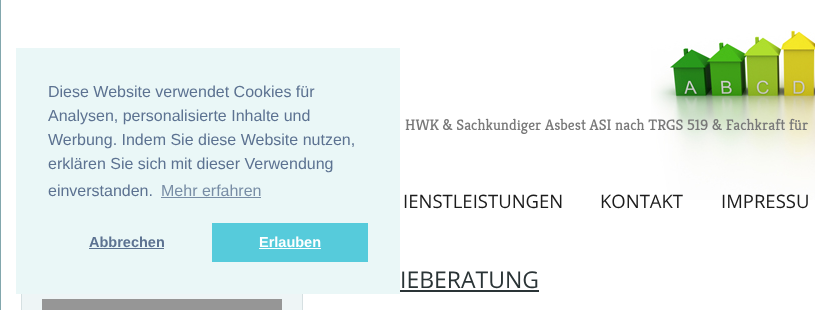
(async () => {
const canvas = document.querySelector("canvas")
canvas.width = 815
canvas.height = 310
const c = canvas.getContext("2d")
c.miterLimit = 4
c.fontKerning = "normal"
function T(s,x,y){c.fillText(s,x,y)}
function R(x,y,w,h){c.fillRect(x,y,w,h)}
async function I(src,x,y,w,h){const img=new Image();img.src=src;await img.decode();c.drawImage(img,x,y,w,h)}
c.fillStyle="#fff"
R(0,0,815,310)
c.fillStyle="#eef5f6"
R(22,294,280,16)
c.strokeStyle="#d6e0e2"
c.strokeRect(21.5,246.5,281,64)
c.fillStyle="#eaf7f7"
R(16,48,384,246)
c.font="16px Liberation Sans"
c.fillStyle="#5c7291"
T("Diese Website verwendet Cookies für",48,97)
T("Analysen, personalisierte Inhalte und",48,121)
T("Werbung. Indem Sie diese Website nutzen,",48,145)
T("erklären Sie sich mit dieser Verwendung",48,169)
T("einverstanden.",48,196)
c.fillStyle="#788da5"
T("Mehr erfahren",161,196)
R(161,197,100,1)
c.font="bold 14.5px Liberation Sans"
c.fillStyle="#5c7291"
T("Abbrechen",89,247)
R(89,248,75,1)
c.fillStyle="#56cbdb"
R(212,223,156,39)
c.fillStyle="#fff"
T("Erlauben",259,247)
R(259,248,62,1)
c.fillStyle="#82a7ad"
R(0,0,1,310)
await I("1.png",651,30,164,170)
c.font="15.3px Kreon"
c.fillStyle="#797979"
T("HWK & Sachkundiger Asbest ASI nach TRGS 519 & Fachkraft für",405,130)
c.font="18.5px Open Sans"
c.fillStyle="#1c1c1c"
T("IENSTLEISTUNGEN",403,208)
T("KONTAKT",600,208)
T("IMPRESSU",721,208)
c.fillStyle="#969696"
R(42,299,240,11)
c.font="23px Open Sans"
c.fillStyle="#2a3436"
T("IEBERATUNG",400,288)
R(400,290,139,2)
})()
